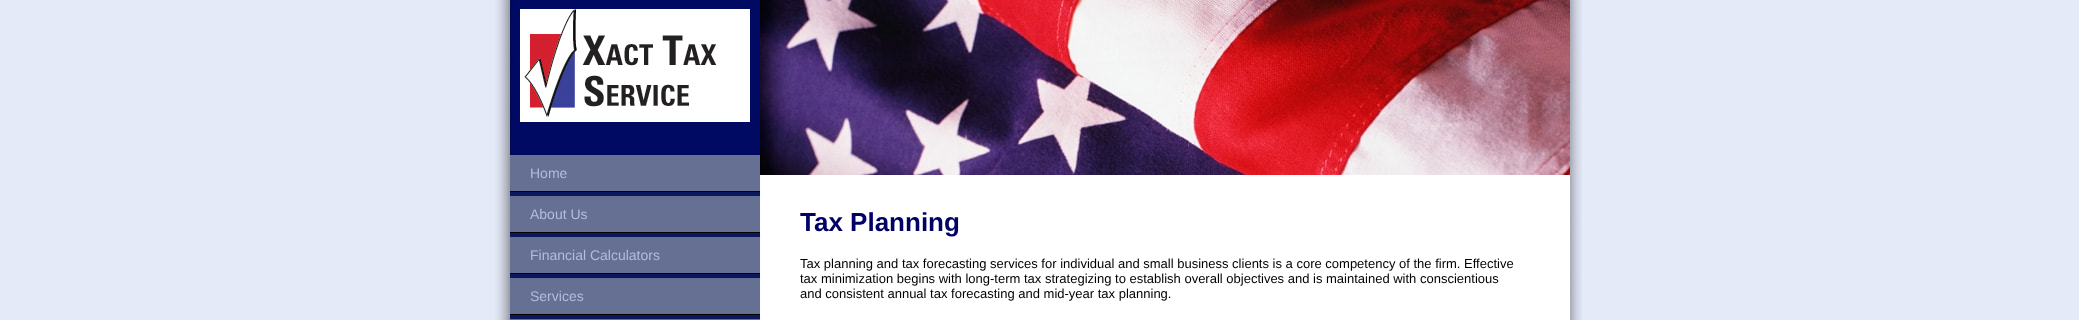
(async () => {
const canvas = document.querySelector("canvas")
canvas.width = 2079
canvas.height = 320
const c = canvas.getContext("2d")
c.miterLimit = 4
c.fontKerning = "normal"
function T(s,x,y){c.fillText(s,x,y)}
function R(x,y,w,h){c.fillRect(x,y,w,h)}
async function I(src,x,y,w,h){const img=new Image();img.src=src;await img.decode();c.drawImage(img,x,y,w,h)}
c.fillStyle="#e4eaf8"
R(0,0,2079,320)
await I("1.png",495,0,1087,320)
await I("2.png",520,9,230,113)
c.fillStyle="#0c185e"
R(510,192,250,127)
c.fillStyle="#657092"
R(510,155,250,36)
c.fillStyle="#000"
R(510,191,250,1)
c.font="14px Liberation Sans"
c.fillStyle="#b3bddc"
T("Home",530,178)
c.fillStyle="#657092"
R(510,196,250,36)
c.fillStyle="#000"
R(510,232,250,1)
c.fillStyle="#b3bddc"
T("About Us",530,219)
c.fillStyle="#657092"
R(510,237,250,36)
c.fillStyle="#000"
R(510,273,250,1)
c.fillStyle="#b3bddc"
T("Financial Calculators",530,260)
c.fillStyle="#657092"
R(510,278,250,36)
c.fillStyle="#000"
R(510,314,250,1)
c.fillStyle="#b3bddc"
T("Services",530,301)
c.fillStyle="#657092"
R(510,319,250,1)
await I("3.png",760,0,810,175)
c.font="bold 26px Liberation Sans"
c.fillStyle="#006"
T("Tax Planning",800,231)
c.font="13px Liberation Sans"
c.fillStyle="#000"
T("Tax planning and tax forecasting services for individual and small business clients is a core competency of the firm. Effective",800,268)
T("tax minimization begins with long-term tax strategizing to establish overall objectives and is maintained with conscientious",800,283)
T("and consistent annual tax forecasting and mid-year tax planning.",800,298)
})()
